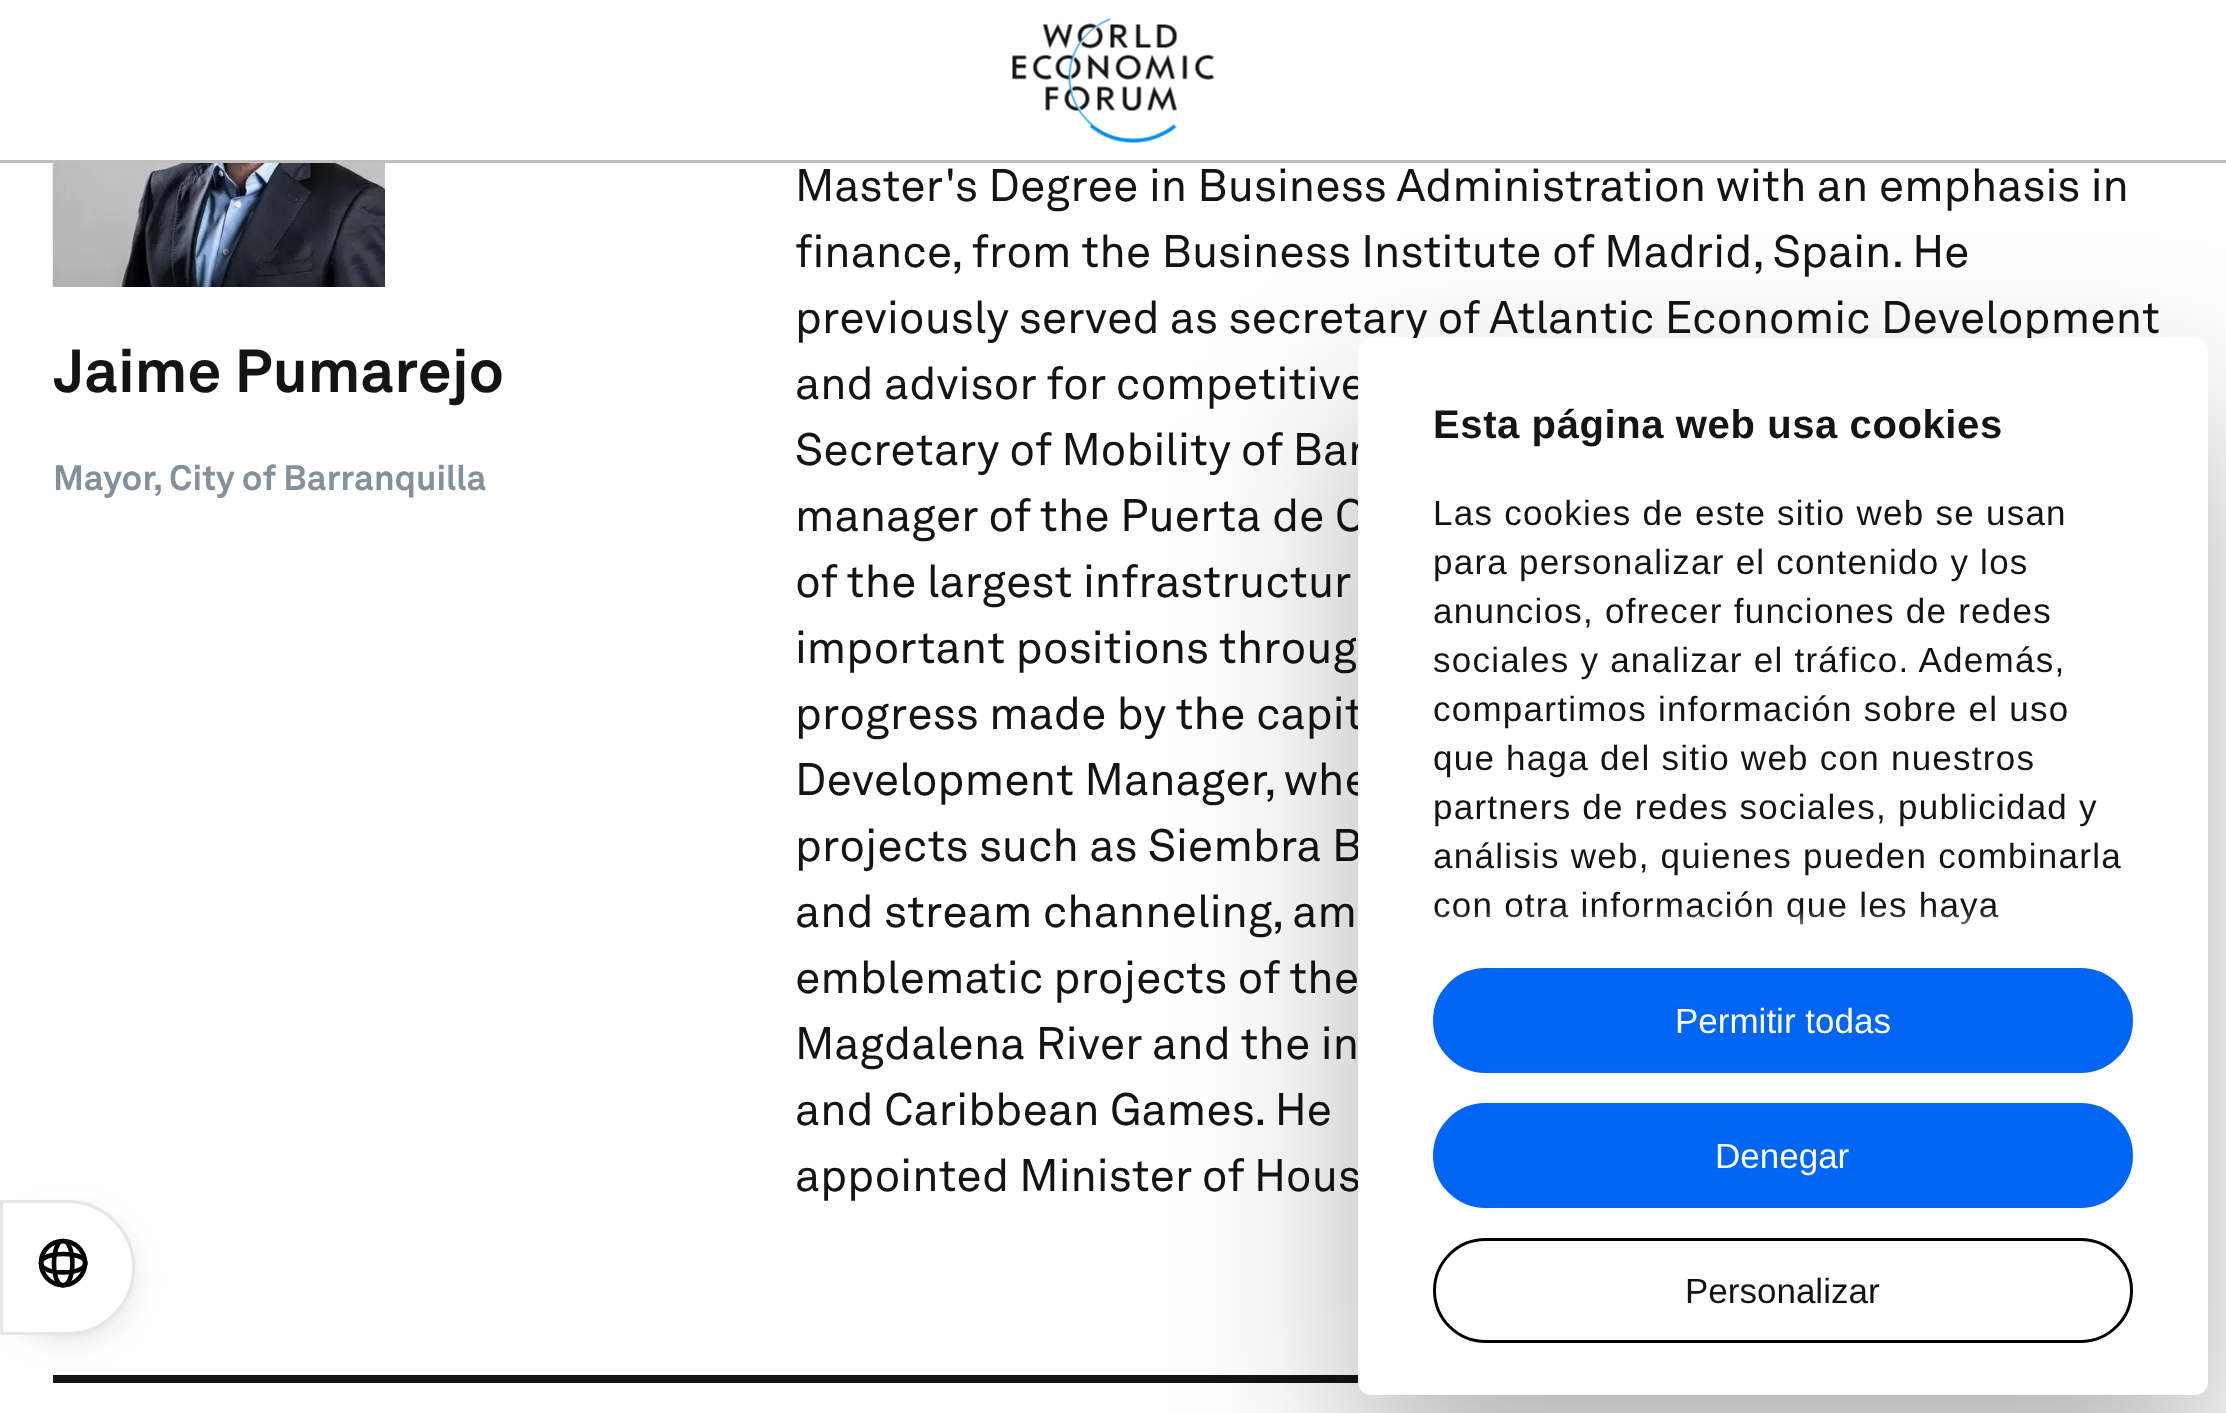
(async () => {
const canvas = document.querySelector("canvas")
canvas.width = 2226
canvas.height = 1413
const c = canvas.getContext("2d")
c.miterLimit = 4
c.fontKerning = "normal"
function T(s,x,y){c.fillText(s,x,y)}
function R(x,y,w,h){c.fillRect(x,y,w,h)}
function Q(x,y,w,h,r){c.beginPath();c.roundRect(x,y,w,h,r);c.fill()}
async function I(src,x,y,w,h){const img=new Image();img.src=src;await img.decode();c.drawImage(img,x,y,w,h)}
let gradient, path
c.fillStyle="#fff"
R(0,0,2226,1413)
c.fillStyle="#bfbfbf"
R(0,160,2226,3)
await I("1.png",1012,18,202,125)
await I("2.png",52,163,333,124)
c.font="bold 60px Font"
c.fillStyle="#141414"
T("Jaime Pumarejo",53,392)
c.font="bold 35px Font"
c.fillStyle="#84919c"
T("Mayor, City of Barranquilla",53,490)
c.font="45px Font"
c.fillStyle="#141414"
T("Master's Degree in Business Administration with an emphasis in",795,201)
T("finance, from the Business Institute of Madrid, Spain. He",795,267)
T("previously served as secretary of Atlantic Economic Development",795,333)
T("and advisor for competitive",795,399)
T("Secretary of Mobility of Bar",795,465)
T("manager of the Puerta de O",795,531)
T("of the largest infrastructur",795,597)
T("important positions throug",795,663)
T("progress made by the capit",795,729)
T("Development Manager, whe",795,795)
T("projects such as Siembra B",795,861)
T("and stream channeling, am",795,927)
T("emblematic projects of the",795,993)
T("Magdalena River and the in",795,1059)
T("and Caribbean Games. He",795,1125)
T("appointed Minister of Hous",795,1191)
R(53,1375,1306,8)
c.fillStyle="#0000000a"
c.filter="blur(2.5px)"
c.beginPath()
c.roundRect(0,1203,135,135,67.5)
c.fill()
c.filter="none"
c.fillStyle="#00000014"
c.filter="blur(15px)"
c.beginPath()
c.roundRect(0,1210,135,135,67.5)
c.fill()
c.filter="none"
c.fillStyle="#fff"
c.beginPath()
c.roundRect(1.5,1201.5,132,132,[0,66,66,0])
c.fill()
c.strokeStyle="#e6e6e6"
c.lineWidth=3
c.stroke()
c.beginPath()
c.arc(63,1263,22,0,7)
c.strokeStyle="#000"
c.lineWidth=4.6
c.stroke()
path = new Path2D("M63 1285.5c-12 0-12-44.5 0-44.5m22.5 22c0 12.5-44.5 12.5-44.5 0m44.5 0c0-12-44.5-12-44.5 0m22 22.5c12.5 0 12.5-44.5 0-44.5")
c.stroke(path)
c.fillStyle="#0000004d"
c.filter="blur(85px)"
c.beginPath()
c.roundRect(1358,418,850,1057,13)
c.fill()
c.filter="none"
c.fillStyle="#fff"
Q(1358,338,850,1057,13)
c.letterSpacing="0.6px"
c.font="bold 40px Liberation Sans"
c.fillStyle="#141414"
T("Esta página web usa cookies",1433,438)
c.letterSpacing="1.25px"
c.font="35px Liberation Sans"
T("Las cookies de este sitio web se usan",1433,525)
T("para personalizar el contenido y los",1433,574)
T("anuncios, ofrecer funciones de redes",1433,623)
T("sociales y analizar el tráfico. Además,",1433,672)
T("compartimos información sobre el uso",1433,721)
T("que haga del sitio web con nuestros",1433,770)
T("partners de redes sociales, publicidad y",1433,819)
T("análisis web, quienes pueden combinarla",1433,868)
T("con otra información que les haya",1433,917)
gradient = c.createLinearGradient(1768,968,1768,910)
gradient.addColorStop(0,"#fff")
gradient.addColorStop(.5,"#ffffffcc")
gradient.addColorStop(1,"#ffffff00")
c.fillStyle = gradient
R(1434,911,564,14)
c.fillStyle="#0065f2"
c.beginPath()
c.roundRect(1434.5,969.5,697,102,51)
c.fill()
c.strokeStyle="#0065f2"
c.lineWidth=3
c.stroke()
c.letterSpacing="0px"
c.fillStyle="#fff"
T("Permitir todas",1675,1033)
c.fillStyle="#0065f2"
c.beginPath()
c.roundRect(1434.5,1104.5,697,102,51)
c.fill()
c.stroke()
c.fillStyle="#fff"
T("Denegar",1715,1168)
c.beginPath()
c.roundRect(1434.5,1239.5,697,102,51)
c.strokeStyle="#000"
c.stroke()
c.fillStyle="#141414"
T("Personalizar",1685,1303)
})()
